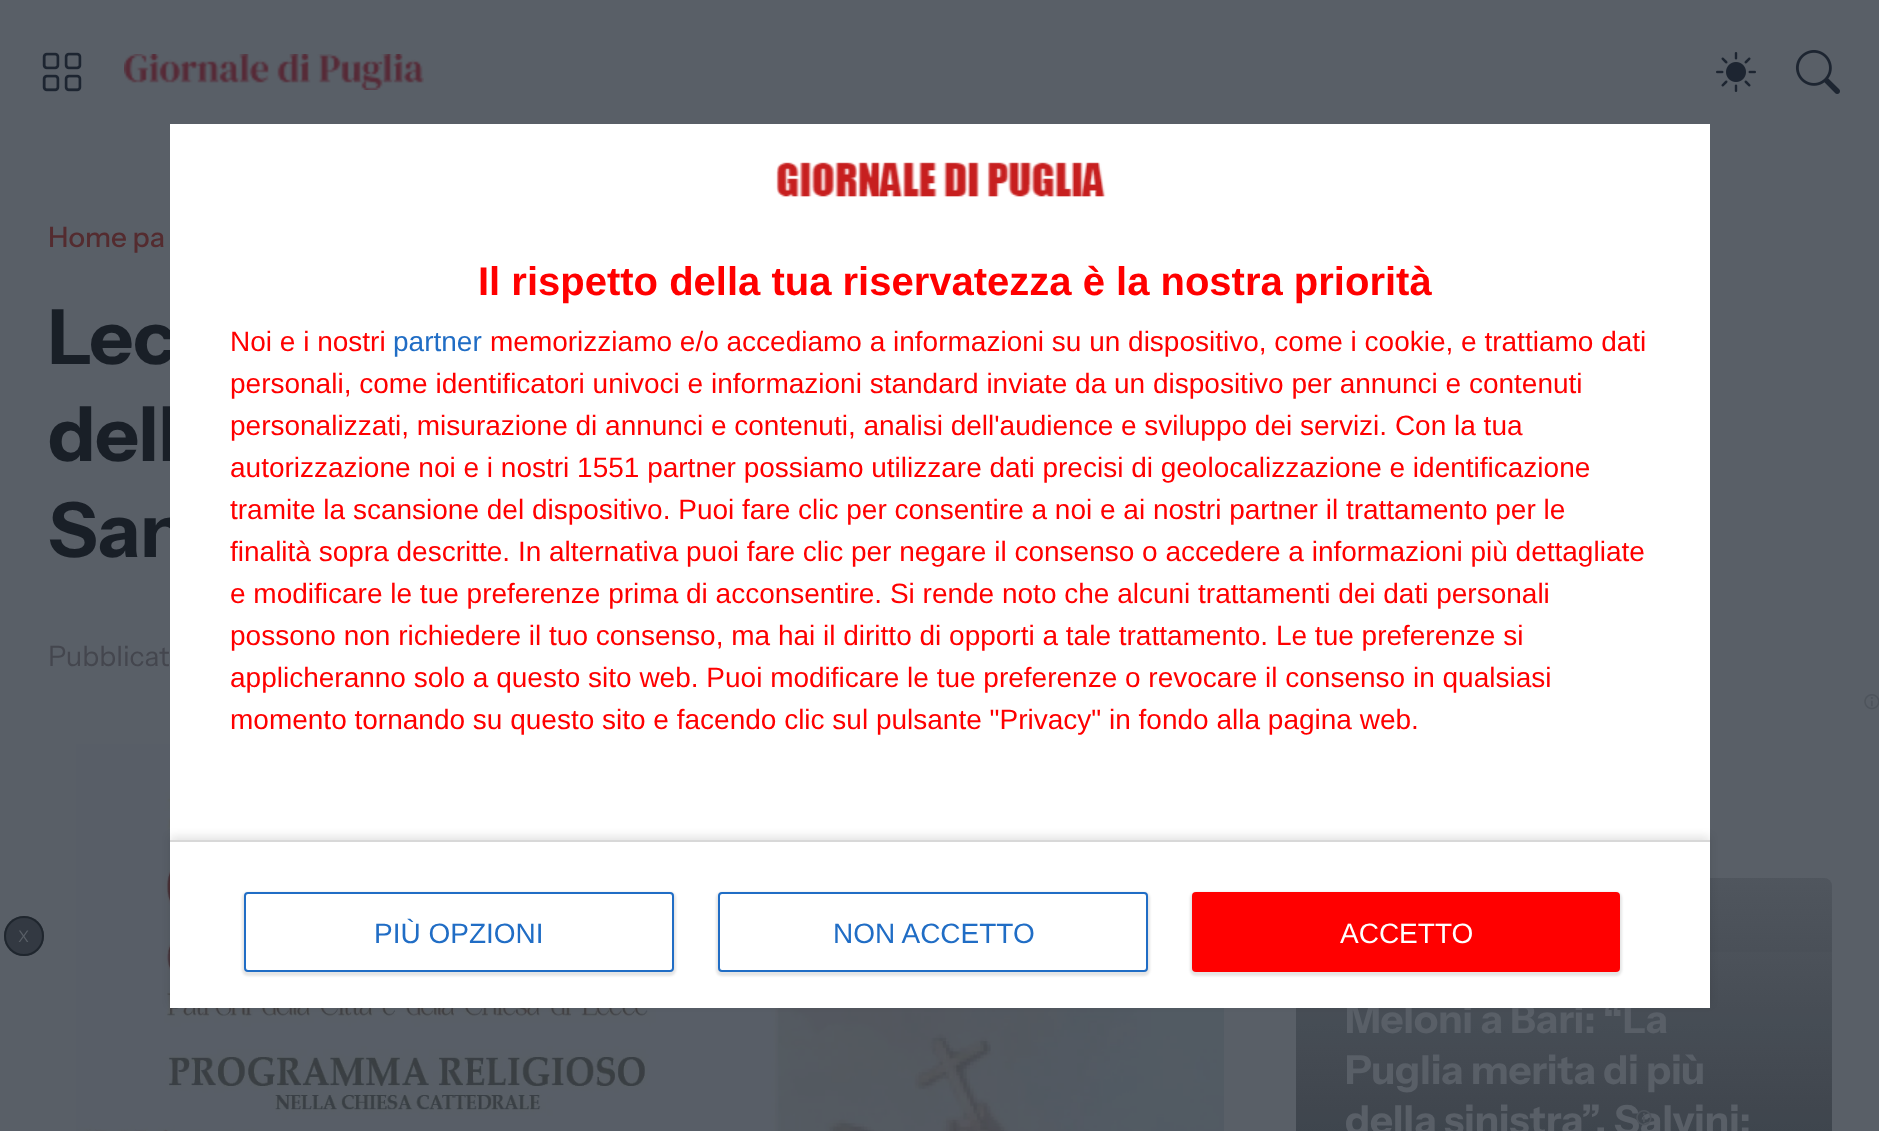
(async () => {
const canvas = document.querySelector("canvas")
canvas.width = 1879
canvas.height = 1131
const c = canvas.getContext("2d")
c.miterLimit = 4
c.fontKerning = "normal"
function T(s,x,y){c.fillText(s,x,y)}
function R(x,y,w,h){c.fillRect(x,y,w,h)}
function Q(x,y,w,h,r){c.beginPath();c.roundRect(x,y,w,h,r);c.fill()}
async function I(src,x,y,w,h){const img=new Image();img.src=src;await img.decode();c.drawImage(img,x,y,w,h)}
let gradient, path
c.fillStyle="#595f67"
R(0,0,1879,1131)
await I("1.png",42,52,40,40)
await I("2.png",124,54,300,36)
await I("3.png",1716,52,40,40)
await I("4.png",1795,50,45,44)
await I("6.png",76,744,1148,387)
c.fillStyle="#565c64"
Q(1296,878,536,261,8)
gradient = c.createLinearGradient(1564,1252,1564,878)
gradient.addColorStop(0,"#191f2799")
gradient.addColorStop(1,"#191f271a")
c.fillStyle = gradient
Q(1296,878,536,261,8)
c.fillStyle="#595f671f"
R(168,952,1664,179)
c.fillStyle="#333942"
c.beginPath()
c.arc(24,936,20,0,7)
c.fill()
c.beginPath()
c.arc(24,936,19,0,7)
c.strokeStyle="#191f27ba"
c.lineWidth=2
c.stroke()
c.font="16px Instrument Sans"
c.fillStyle="#595f67"
T("X",18,942)
c.letterSpacing="-0.2px"
c.font="bold 40px Instrument Sans"
T("della sinistra”. Salvini:",1345,1134)
await I("5.png",1636,1110,16,16)
c.letterSpacing="0px"
c.font="500 28px Instrument Sans"
c.fillStyle="#542b2f"
T("Home pa",48,247)
c.letterSpacing="-0.5px"
c.font="bold 76px Instrument Sans"
c.fillStyle="#191f27"
T("Lec",48,364)
T("dell",48,461)
T("San",48,557)
c.letterSpacing="0px"
c.font="28px Instrument Sans"
c.fillStyle="#44464e"
T("Pubblicat",48,666)
await I("7.png",1864,694,15,16)
c.letterSpacing="-0.2px"
c.font="bold 40px Instrument Sans"
c.fillStyle="#595f67"
T("Meloni a Bari: “La",1345,1033)
T("Puglia merita di più",1345,1084)
c.fillStyle="#fff"
R(170,124,1540,884)
await I("8.png",776,162,330,35)
c.letterSpacing="0px"
c.font="bold 40px Liberation Sans"
c.fillStyle="#f00"
T("Il rispetto della tua riservatezza è la nostra priorità",478,295)
c.font="28px Liberation Sans"
T("Noi e i nostri",230,351)
c.fillStyle="#206dc5"
T("partner",393,351)
c.fillStyle="#f00"
T("memorizziamo e/o accediamo a informazioni su un dispositivo, come i cookie, e trattiamo dati",490,351)
T("personali, come identificatori univoci e informazioni standard inviate da un dispositivo per annunci e contenuti",230,393)
T("personalizzati, misurazione di annunci e contenuti, analisi dell'audience e sviluppo dei servizi. Con la tua",230,435)
T("autorizzazione noi e i nostri 1551 partner possiamo utilizzare dati precisi di geolocalizzazione e identificazione",230,477)
T("tramite la scansione del dispositivo. Puoi fare clic per consentire a noi e ai nostri partner il trattamento per le",230,519)
T("finalità sopra descritte. In alternativa puoi fare clic per negare il consenso o accedere a informazioni più dettagliate",230,561)
T("e modificare le tue preferenze prima di acconsentire. Si rende noto che alcuni trattamenti dei dati personali",230,603)
T("possono non richiedere il tuo consenso, ma hai il diritto di opporti a tale trattamento. Le tue preferenze si",230,645)
T("applicheranno solo a questo sito web. Puoi modificare le tue preferenze o revocare il consenso in qualsiasi",230,687)
T("momento tornando su questo sito e facendo clic sul pulsante \"Privacy\" in fondo alla pagina web.",230,729)
c.save()
path = new Path2D("M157 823h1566v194h-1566zm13 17h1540v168h-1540z")
c.clip(path,"evenodd")
c.fillStyle="#0000001a"
c.filter="blur(4px)"
c.beginPath()
c.rect(170,836,1540,168)
c.fill()
c.filter="none"
c.restore()
c.fillStyle="#d8d8d8"
R(170,840,1540,2)
c.fillStyle="#0000001a"
c.filter="blur(1px)"
c.beginPath()
c.roundRect(242,892,434,84,6)
c.fill()
c.filter="none"
c.fillStyle="#fff"
c.beginPath()
c.roundRect(245,893,428,78,3)
c.fill()
c.strokeStyle="#206dc5"
c.stroke()
c.fillStyle="#206dc5"
T("PIÙ OPZIONI",374,943)
c.fillStyle="#0000001a"
c.filter="blur(1px)"
c.beginPath()
c.roundRect(716,892,434,84,6)
c.fill()
c.filter="none"
c.fillStyle="#fff"
c.beginPath()
c.roundRect(719,893,428,78,3)
c.fill()
c.stroke()
c.fillStyle="#206dc5"
T("NON ACCETTO",833,943)
c.fillStyle="#0000001a"
c.filter="blur(1px)"
c.beginPath()
c.roundRect(1190,892,432,84,6)
c.fill()
c.filter="none"
c.fillStyle="#f00"
Q(1192,892,428,80,4)
c.fillStyle="#fff"
T("ACCETTO",1340,943)
})()
